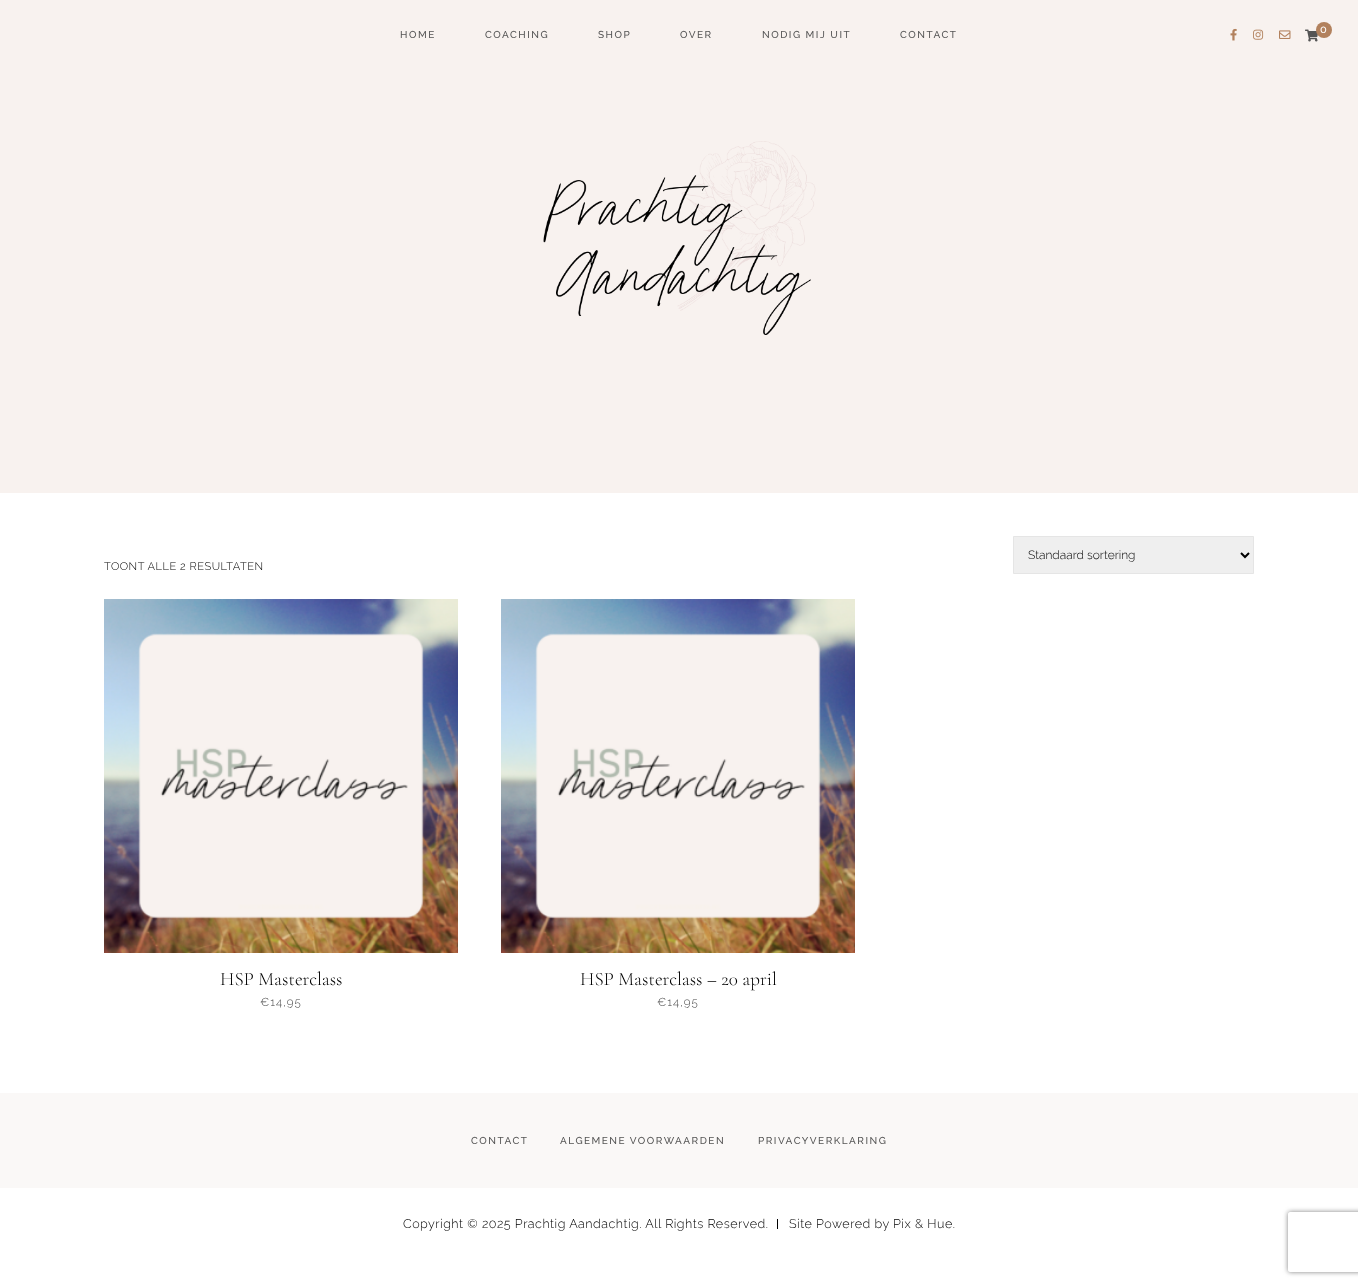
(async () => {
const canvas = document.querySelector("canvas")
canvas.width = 1358
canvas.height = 1286
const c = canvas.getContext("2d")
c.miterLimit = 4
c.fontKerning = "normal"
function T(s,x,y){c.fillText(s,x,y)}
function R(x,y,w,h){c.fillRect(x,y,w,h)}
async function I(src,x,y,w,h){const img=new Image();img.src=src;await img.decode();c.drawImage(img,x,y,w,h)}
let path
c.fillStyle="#fff"
R(0,0,1358,1286)
c.fillStyle="#f8f2ef"
R(0,0,1358,493)
c.letterSpacing="1.5px"
c.font="500 10px Raleway"
c.fillStyle="#555"
T("HOME",400,38)
T("COACHING",485,38)
T("SHOP",598,38)
T("OVER",680,38)
T("NODIG MIJ UIT",762,38)
T("CONTACT",900,38)
await I("1.png",1230,28,7,13)
await I("2.png",1253,29,11,11)
await I("3.png",1279,30,12,9)
await I("4.png",1305,29,13,13)
c.fillStyle="#b2815d"
c.beginPath()
c.arc(1324,30,8,0,7)
c.fill()
c.letterSpacing="0.5px"
c.font="500 11px Raleway"
c.fillStyle="#fff"
T("0",1320,33)
await I("5.png",543,141,273,194)
c.fillStyle="#efefef"
c.beginPath()
c.rect(1013.5,536.5,240,37)
c.fill()
c.strokeStyle="#e5e5e5"
c.stroke()
path = new Path2D("M1241 553l4 4l4-4")
c.strokeStyle="#000"
c.lineWidth=2
c.stroke(path)
c.letterSpacing="0px"
c.font="300 12px Raleway"
c.fillStyle="#000"
T("Standaard sortering",1028,559)
c.letterSpacing="0.5px"
c.font="300 11.1px Raleway"
T("TOONT ALLE 2 RESULTATEN",104,570)
await I("6.png",104,599,354,354)
c.letterSpacing="0px"
c.font="300 19px Cormorant Garamond"
T("HSP Masterclass",220,985)
c.letterSpacing="1px"
c.font="300 11.5px Raleway"
c.fillStyle="#444"
T("€14,95",260,1006)
await I("7.png",501,599,354,354)
c.letterSpacing="0px"
c.font="300 19px Cormorant Garamond"
c.fillStyle="#000"
T("HSP Masterclass – 20 april",580,985)
c.letterSpacing="1px"
c.font="300 11.5px Raleway"
c.fillStyle="#444"
T("€14,95",657,1006)
c.fillStyle="#faf8f7"
R(0,1093,1358,95)
c.letterSpacing="1.5px"
c.font="500 10px Raleway"
c.fillStyle="#555"
T("CONTACT",471,1144)
T("ALGEMENE VOORWAARDEN",560,1144)
T("PRIVACYVERKLARING",758,1144)
c.letterSpacing="0.5px"
c.font="300 12.55px Raleway"
c.fillStyle="#000"
T("Copyright © 2025 Prachtig Aandachtig. All Rights Reserved.",403,1228)
R(777,1219,1,10)
T("Site Powered by Pix & Hue.",789,1228)
c.save()
path = new Path2D("M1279 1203h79v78h-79zm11 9h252c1 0 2 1 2 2v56c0 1-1 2-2 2h-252c-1 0-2-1-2-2v-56c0-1 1-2 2-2z")
c.clip(path,"evenodd")
c.fillStyle="#808080"
c.filter="blur(2.5px)"
c.beginPath()
c.roundRect(1288,1212,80,60,2)
c.fill()
c.filter="none"
c.restore()
})()
